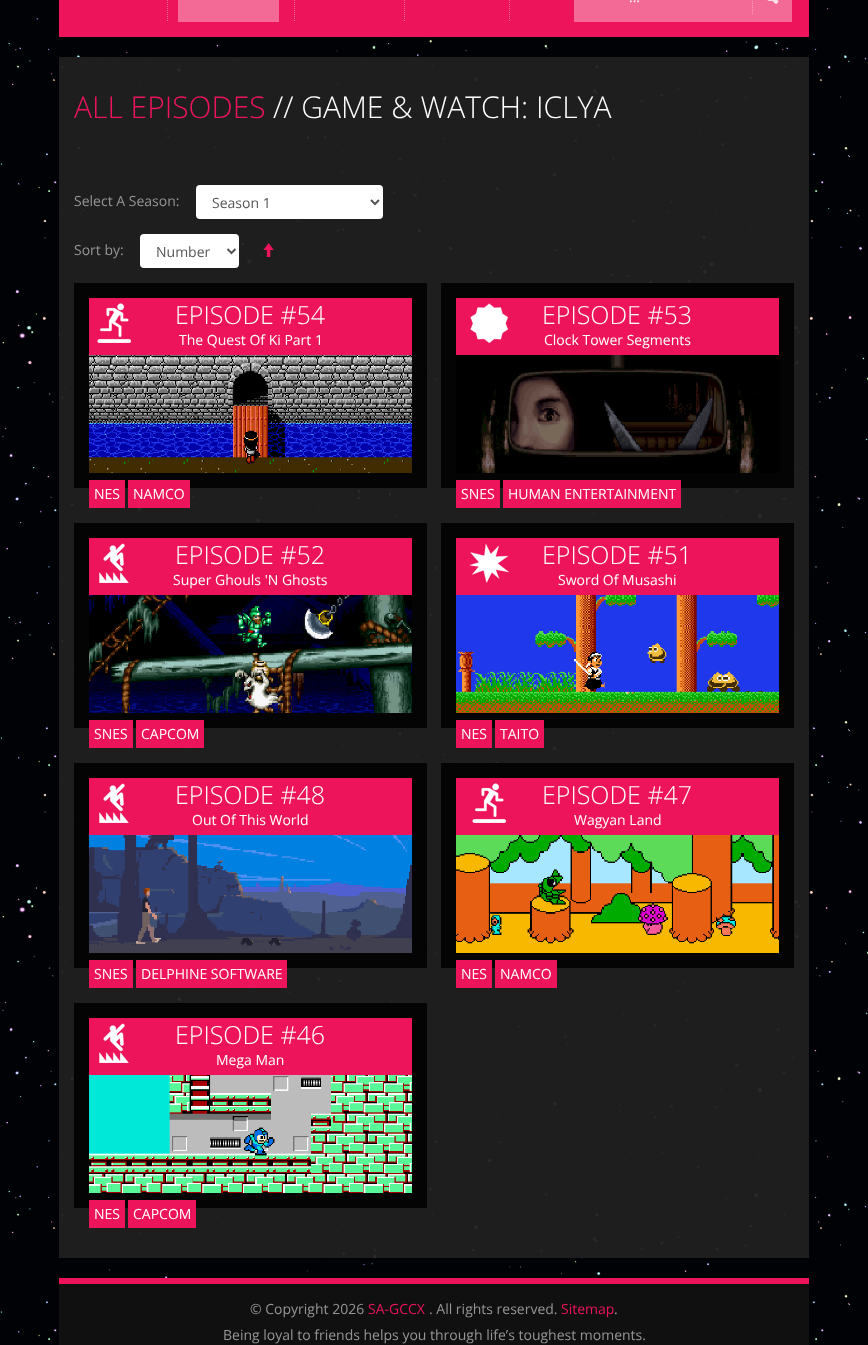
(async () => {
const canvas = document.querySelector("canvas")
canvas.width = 868
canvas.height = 1345
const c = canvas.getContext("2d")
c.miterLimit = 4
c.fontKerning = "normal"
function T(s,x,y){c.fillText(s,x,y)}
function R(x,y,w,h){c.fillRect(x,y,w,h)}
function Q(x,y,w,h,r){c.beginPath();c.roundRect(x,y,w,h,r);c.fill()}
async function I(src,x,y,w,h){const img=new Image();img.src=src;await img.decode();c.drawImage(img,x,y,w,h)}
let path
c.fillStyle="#fff"
R(0,0,868,1345)
await I("1.png",0,0,868,1345)
c.fillStyle="#ed145b"
R(59,0,750,37)
path = new Path2D("M167.5-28v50")
c.strokeStyle="#f36a97"
c.setLineDash([1,1])
c.stroke(path)
path = new Path2D("M294.5-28v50")
c.stroke(path)
c.fillStyle="#f36a97"
R(178,0,101,22)
path = new Path2D("M404.5-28v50")
c.stroke(path)
path = new Path2D("M509.5-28v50")
c.stroke(path)
R(574,0,218,22)
c.font="14px Open Sans"
c.fillStyle="#fff"
T("...",629,2)
await I("2.png",752,0,27,14)
c.fillStyle="#202020f2"
R(59,57,750,1201)
c.font="300 30px Open Sans"
c.fillStyle="#ed145b"
T("ALL EPISODES",74,118)
c.fillStyle="#fff"
T("// GAME & WATCH: ICLYA",273,118)
c.font="14px Open Sans"
c.fillStyle="#959595"
T("Select A Season:",74,206)
c.fillStyle="#fff"
Q(196,185,187,34,4)
path = new Path2D("M371 200l4 4l4-4")
c.strokeStyle="#555"
c.lineWidth=2
c.setLineDash([])
c.stroke(path)
c.fillStyle="#555"
T("Season 1",212,208)
c.fillStyle="#959595"
T("Sort by:",74,255)
c.fillStyle="#fff"
Q(140,234,99,34,4)
path = new Path2D("M227.5 249l4 4l4-4")
c.stroke(path)
c.fillStyle="#555"
T("Number",156,257)
await I("3.png",263,243,11,14)
c.fillStyle="#040404"
R(74,283,353,205)
c.fillStyle="#ed145b"
R(89,298,323,57)
await I("4.png",97,303,35,40)
c.font="300 25px Open Sans"
c.fillStyle="#fff"
T("EPISODE #54",175,324)
c.font="14px Open Sans"
T("The Quest Of Ki Part 1",179,345)
await I("5.png",89,355,323,118)
c.fillStyle="#ed145b"
R(89,480,36,28)
c.fillStyle="#fff"
T("NES",94,499)
c.fillStyle="#ed145b"
R(128,480,62,28)
c.fillStyle="#fff"
T("NAMCO",133,499)
c.fillStyle="#040404"
R(441,283,353,205)
c.fillStyle="#ed145b"
R(456,298,323,57)
await I("6.png",470,303,39,40)
c.font="300 25px Open Sans"
c.fillStyle="#fff"
T("EPISODE #53",542,324)
c.font="14px Open Sans"
T("Clock Tower Segments",544,345)
c.fillStyle="#000"
R(456,355,323,118)
await I("7.png",476,355,282,118)
c.fillStyle="#ed145b"
R(456,480,44,28)
c.fillStyle="#fff"
T("SNES",461,499)
c.fillStyle="#ed145b"
R(503,480,178,28)
c.fillStyle="#fff"
T("HUMAN ENTERTAINMENT",508,499)
c.fillStyle="#040404"
R(74,523,353,205)
c.fillStyle="#ed145b"
R(89,538,323,57)
await I("8.png",99,543,30,40)
c.font="300 25px Open Sans"
c.fillStyle="#fff"
T("EPISODE #52",175,564)
c.font="14px Open Sans"
T("Super Ghouls 'N Ghosts",173,585)
await I("9.png",89,595,323,118)
c.fillStyle="#ed145b"
R(89,720,44,28)
c.fillStyle="#fff"
T("SNES",94,739)
c.fillStyle="#ed145b"
R(136,720,68,28)
c.fillStyle="#fff"
T("CAPCOM",141,739)
c.fillStyle="#040404"
R(441,523,353,205)
c.fillStyle="#ed145b"
R(456,538,323,57)
await I("10.png",469,543,40,40)
c.font="300 25px Open Sans"
c.fillStyle="#fff"
T("EPISODE #51",542,564)
c.font="14px Open Sans"
T("Sword Of Musashi",558,585)
await I("11.png",456,595,323,118)
c.fillStyle="#ed145b"
R(456,720,36,28)
c.fillStyle="#fff"
T("NES",461,739)
c.fillStyle="#ed145b"
R(495,720,49,28)
c.fillStyle="#fff"
T("TAITO",500,739)
c.fillStyle="#040404"
R(74,763,353,205)
c.fillStyle="#ed145b"
R(89,778,323,57)
await I("8.png",99,783,30,40)
c.font="300 25px Open Sans"
c.fillStyle="#fff"
T("EPISODE #48",175,804)
c.font="14px Open Sans"
T("Out Of This World",192,825)
await I("12.png",89,835,323,118)
c.fillStyle="#ed145b"
R(89,960,44,28)
c.fillStyle="#fff"
T("SNES",94,979)
c.fillStyle="#ed145b"
R(136,960,151,28)
c.fillStyle="#fff"
T("DELPHINE SOFTWARE",141,979)
c.fillStyle="#040404"
R(441,763,353,205)
c.fillStyle="#ed145b"
R(456,778,323,57)
await I("4.png",472,783,35,40)
c.font="300 25px Open Sans"
c.fillStyle="#fff"
T("EPISODE #47",542,804)
c.font="14px Open Sans"
T("Wagyan Land",574,825)
await I("13.png",456,835,323,118)
c.fillStyle="#ed145b"
R(456,960,36,28)
c.fillStyle="#fff"
T("NES",461,979)
c.fillStyle="#ed145b"
R(495,960,62,28)
c.fillStyle="#fff"
T("NAMCO",500,979)
c.fillStyle="#040404"
R(74,1003,353,205)
c.fillStyle="#ed145b"
R(89,1018,323,57)
await I("8.png",99,1023,30,40)
c.font="300 25px Open Sans"
c.fillStyle="#fff"
T("EPISODE #46",175,1044)
c.font="14px Open Sans"
T("Mega Man",216,1065)
await I("14.png",89,1075,323,118)
c.fillStyle="#ed145b"
R(89,1200,36,28)
c.fillStyle="#fff"
T("NES",94,1219)
c.fillStyle="#ed145b"
R(128,1200,68,28)
c.fillStyle="#fff"
T("CAPCOM",133,1219)
c.fillStyle="#101010"
R(59,1284,750,61)
c.fillStyle="#ed145b"
R(59,1278,750,6)
c.fillStyle="#959595"
T("© Copyright 2026",250,1314)
c.fillStyle="#ed145b"
T("SA-GCCX",368,1314)
c.fillStyle="#959595"
T(". All rights reserved.",429,1314)
c.fillStyle="#ed145b"
T("Sitemap",561,1314)
c.fillStyle="#959595"
T(".",614,1314)
T("Being loyal to friends helps you through life’s toughest moments.",223,1340)
})()
